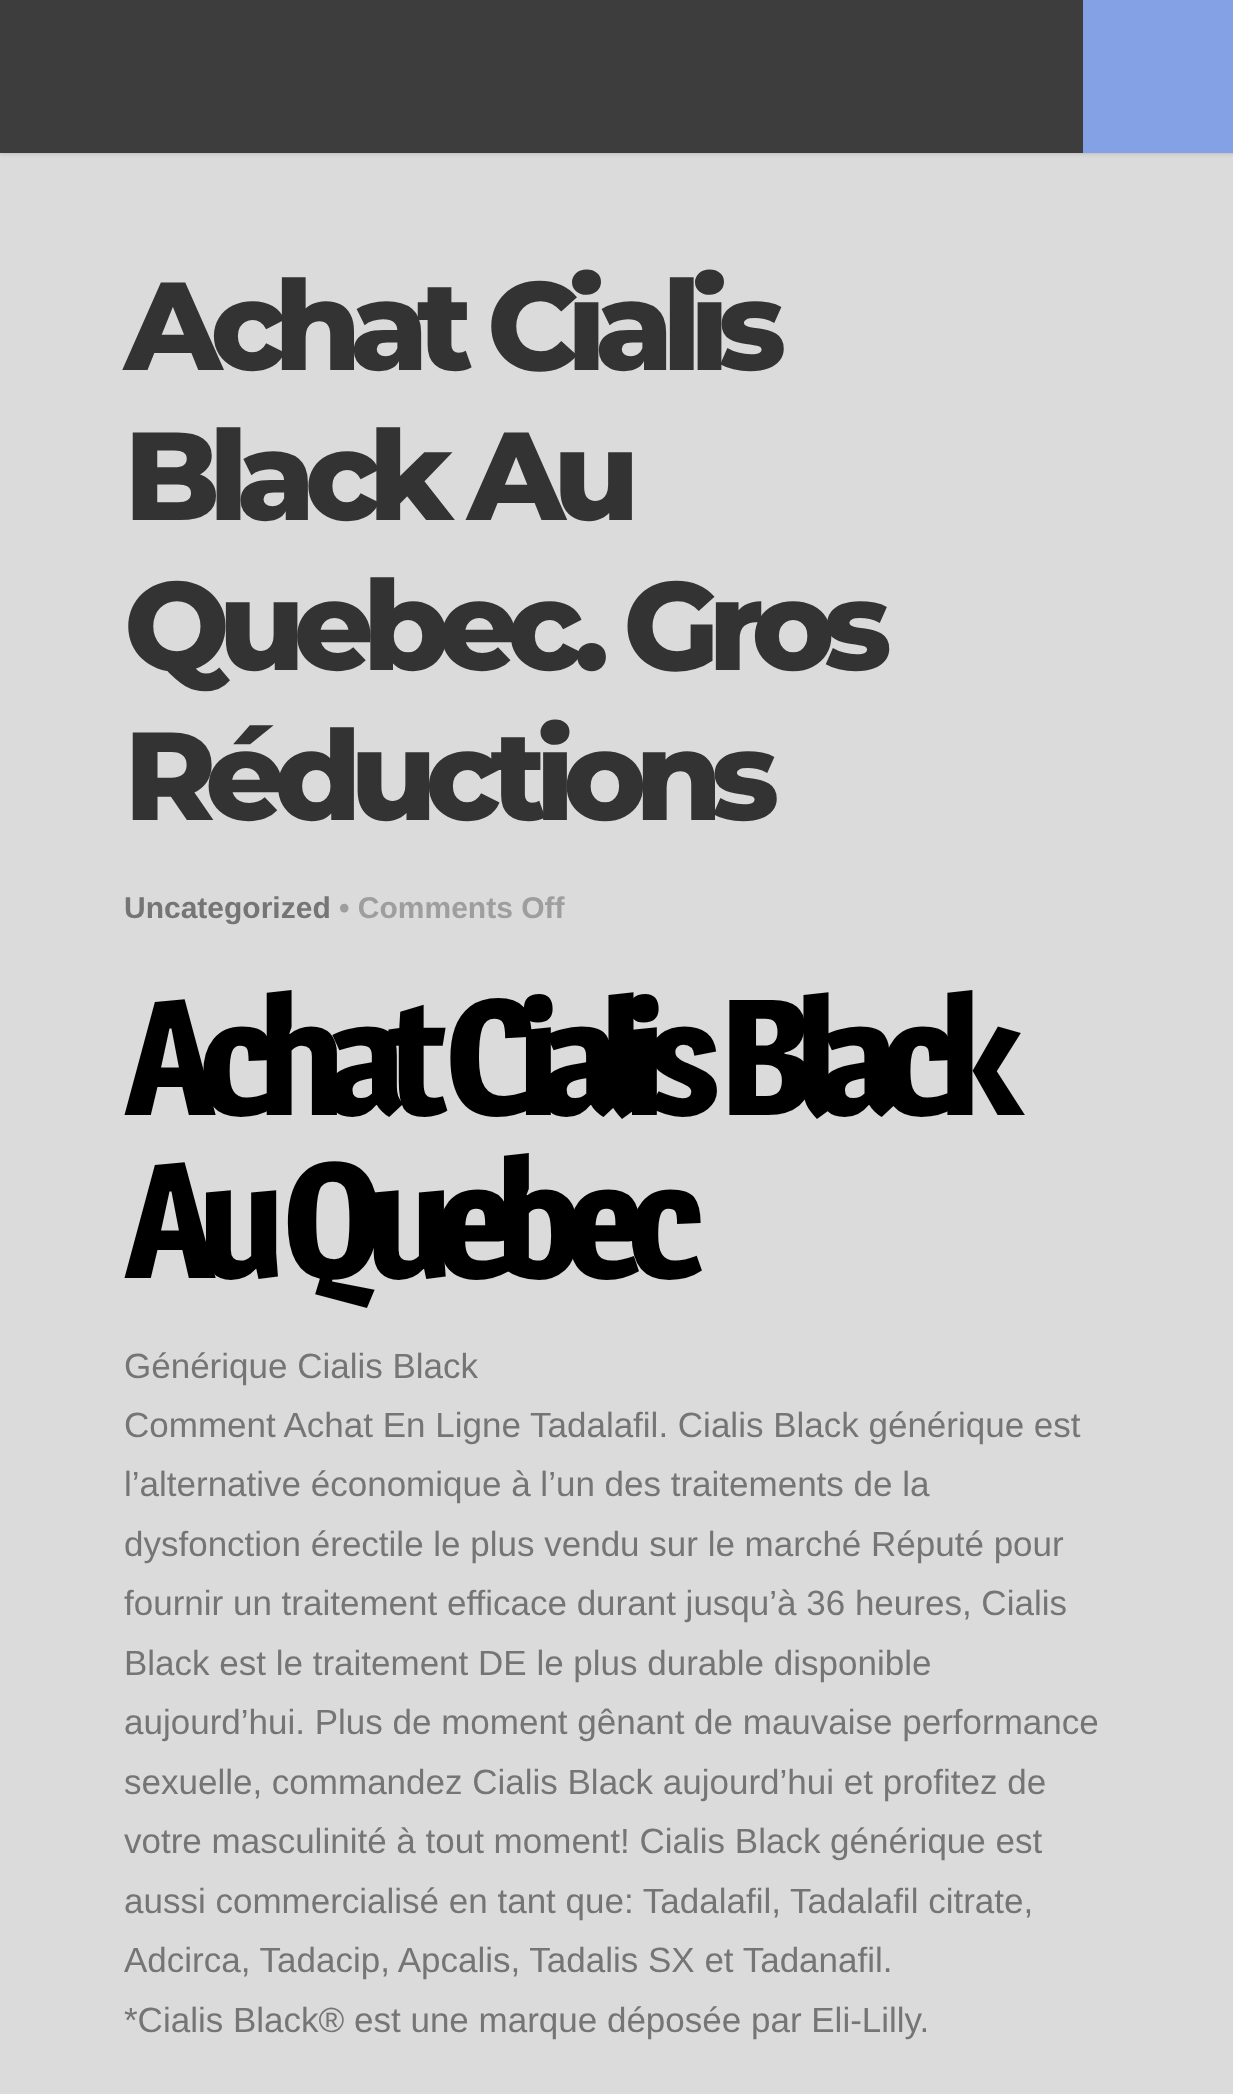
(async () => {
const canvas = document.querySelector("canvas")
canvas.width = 1233
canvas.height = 2094
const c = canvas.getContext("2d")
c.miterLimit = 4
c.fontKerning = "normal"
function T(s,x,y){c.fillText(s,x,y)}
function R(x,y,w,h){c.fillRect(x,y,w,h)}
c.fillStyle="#dbdbdb"
R(0,0,1233,2094)
c.fillStyle="#00000033"
c.filter="blur(2.5px)"
c.beginPath()
c.rect(0,0,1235,153)
c.fill()
c.filter="none"
c.fillStyle="#3d3d3d"
R(0,0,1083,153)
c.fillStyle="#85a1e6"
R(1083,0,150,153)
c.letterSpacing="-11.25px"
c.font="800 125px Montserrat"
c.fillStyle="#333"
T("Achat Cialis",124,370)
T("Black Au",124,520)
T("Quebec. Gros",124,670)
T("Réductions",124,820)
c.letterSpacing="0px"
c.font="bold 30px Liberation Sans"
c.fillStyle="#757575"
T("Uncategorized",124,918)
c.fillStyle="#9e9e9e"
T("• Comments Off",339,918)
c.letterSpacing="-17.9px"
c.font="600 162.5px Magra"
c.fillStyle="#000"
T("Achat Cialis Black",124,1115)
T("Au Quebec",124,1278)
c.letterSpacing="0px"
c.font="35px Liberation Sans"
c.fillStyle="#757575"
T("Générique Cialis Black",124,1378)
T("Comment Achat En Ligne Tadalafil. Cialis Black générique est",124,1437)
T("l’alternative économique à l’un des traitements de la",124,1496)
T("dysfonction érectile le plus vendu sur le marché Réputé pour",124,1556)
T("fournir un traitement efficace durant jusqu’à 36 heures, Cialis",124,1615)
T("Black est le traitement DE le plus durable disponible",124,1675)
T("aujourd’hui. Plus de moment gênant de mauvaise performance",124,1734)
T("sexuelle, commandez Cialis Black aujourd’hui et profitez de",124,1794)
T("votre masculinité à tout moment! Cialis Black générique est",124,1853)
T("aussi commercialisé en tant que: Tadalafil, Tadalafil citrate,",124,1913)
T("Adcirca, Tadacip, Apcalis, Tadalis SX et Tadanafil.",124,1972)
T("*Cialis Black® est une marque déposée par Eli-Lilly.",124,2032)
})()
